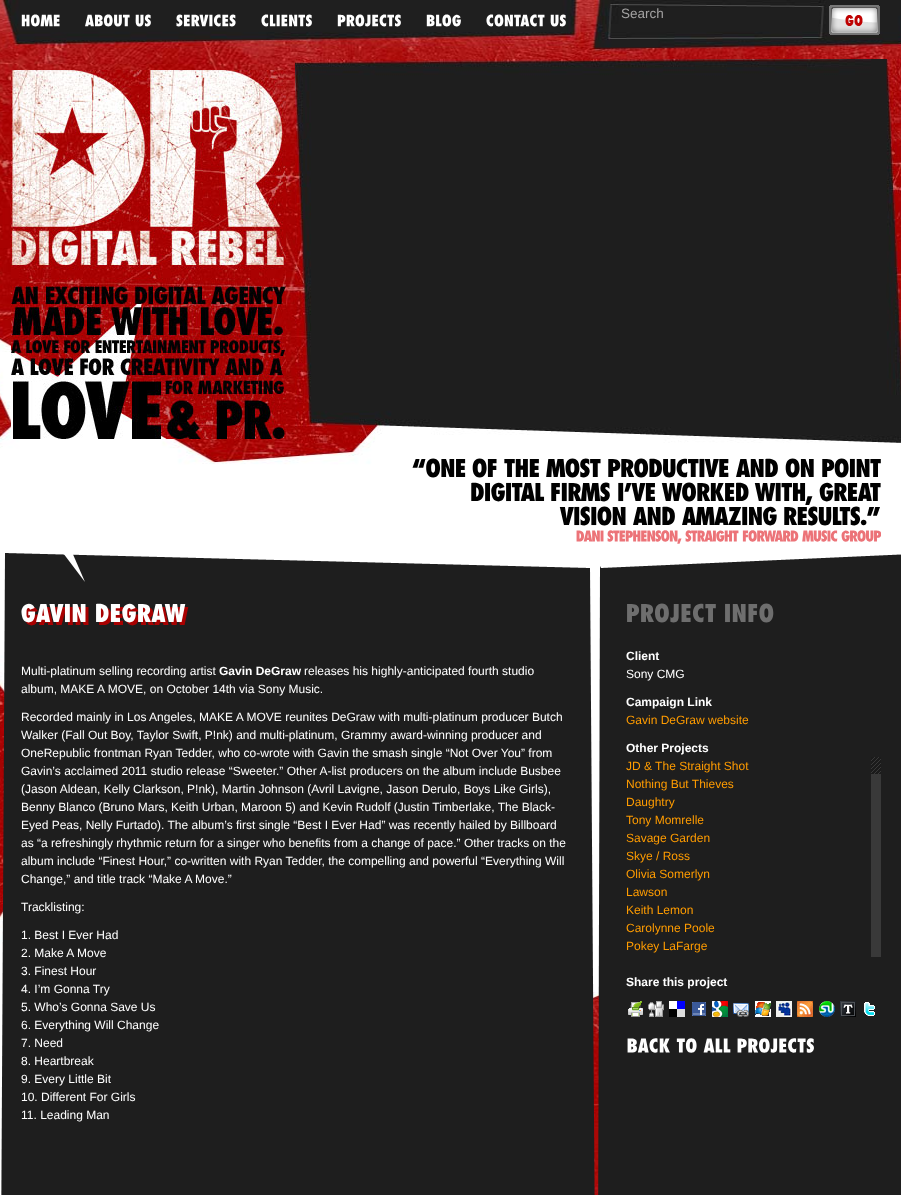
(async () => {
const canvas = document.querySelector("canvas")
canvas.width = 901
canvas.height = 1195
const c = canvas.getContext("2d")
c.miterLimit = 4
c.fontKerning = "normal"
function T(s,x,y){c.fillText(s,x,y)}
function R(x,y,w,h){c.fillRect(x,y,w,h)}
async function I(src,x,y,w,h){const img=new Image();img.src=src;await img.decode();c.drawImage(img,x,y,w,h)}
c.fillStyle="#fff"
R(0,0,901,1195)
await I("1.png",0,0,901,1195)
await I("2.png",21,14,39,13)
await I("3.png",85,14,45,13)
await I("4.png",135,14,16,13)
await I("5.png",176,14,60,13)
await I("6.png",261,14,51,13)
await I("7.png",337,14,64,13)
await I("8.png",426,14,35,13)
await I("9.png",486,14,59,13)
await I("10.png",550,14,16,13)
c.font="13.5px Liberation Sans"
c.fillStyle="#a3a2a2"
T("Search",621,18)
await I("11.png",829,5,51,30)
await I("12.png",11,70,275,369)
await I("13.png",295,59,606,384)
await I("14.png",412,458,54,20)
await I("15.png",472,458,25,20)
await I("16.png",504,459,35,18)
await I("17.png",546,458,55,20)
await I("18.png",608,458,121,20)
await I("19.png",736,458,42,19)
await I("20.png",785,458,29,20)
await I("21.png",822,458,59,20)
await I("22.png",471,482,74,20)
await I("23.png",551,482,59,20)
await I("24.png",618,482,37,20)
await I("25.png",661,482,88,20)
await I("26.png",754,482,59,23)
await I("27.png",819,482,62,20)
await I("28.png",559,506,67,20)
await I("19.png",633,506,42,19)
await I("29.png",682,506,95,20)
await I("30.png",784,506,96,20)
await I("31.png",576,530,28,12)
await I("32.png",607,530,75,14)
await I("33.png",685,530,54,12)
await I("34.png",742,530,57,12)
await I("35.png",802,530,36,12)
await I("36.png",841,530,40,12)
await I("37.png",1,553,900,642)
await I("40.png",25,606,64,20)
await I("38.png",21,603,65,20)
await I("41.png",99,607,90,19)
await I("39.png",96,603,90,20)
c.font="12px Liberation Sans"
c.fillStyle="#fff"
T("Multi-platinum selling recording artist",21,675)
c.font="bold 12px Liberation Sans"
T("Gavin DeGraw",219,675)
c.font="12px Liberation Sans"
T("releases his highly-anticipated fourth studio",304,675)
T("album, MAKE A MOVE, on October 14th via Sony Music.",21,693)
T("Recorded mainly in Los Angeles, MAKE A MOVE reunites DeGraw with multi-platinum producer Butch",21,721)
T("Walker (Fall Out Boy, Taylor Swift, P!nk) and multi-platinum, Grammy award-winning producer and",21,739)
T("OneRepublic frontman Ryan Tedder, who co-wrote with Gavin the smash single “Not Over You” from",21,757)
T("Gavin’s acclaimed 2011 studio release “Sweeter.” Other A-list producers on the album include Busbee",21,775)
T("(Jason Aldean, Kelly Clarkson, P!nk), Martin Johnson (Avril Lavigne, Jason Derulo, Boys Like Girls),",21,793)
T("Benny Blanco (Bruno Mars, Keith Urban, Maroon 5) and Kevin Rudolf (Justin Timberlake, The Black-",21,811)
T("Eyed Peas, Nelly Furtado). The album’s first single “Best I Ever Had” was recently hailed by Billboard",21,829)
T("as “a refreshingly rhythmic return for a singer who benefits from a change of pace.” Other tracks on the",21,847)
T("album include “Finest Hour,” co-written with Ryan Tedder, the compelling and powerful “Everything Will",21,865)
T("Change,” and title track “Make A Move.”",21,883)
T("Tracklisting:",21,911)
T("1. Best I Ever Had",21,939)
T("2. Make A Move",21,957)
T("3. Finest Hour",21,975)
T("4. I’m Gonna Try",21,993)
T("5. Who’s Gonna Save Us",21,1011)
T("6. Everything Will Change",21,1029)
T("7. Need",21,1047)
T("8. Heartbreak",21,1065)
T("9. Every Little Bit",21,1083)
T("10. Different For Girls",21,1101)
T("11. Leading Man",21,1119)
await I("42.png",627,603,89,20)
await I("43.png",725,603,49,20)
c.font="bold 12px Liberation Sans"
T("Client",626,660)
c.font="12px Liberation Sans"
T("Sony CMG",626,678)
c.font="bold 12px Liberation Sans"
T("Campaign Link",626,706)
c.font="12px Liberation Sans"
c.fillStyle="#ff9c00"
T("Gavin DeGraw website",626,724)
c.font="bold 12px Liberation Sans"
c.fillStyle="#fff"
T("Other Projects",626,752)
c.font="12px Liberation Sans"
c.fillStyle="#ff9c00"
T("JD & The Straight Shot",626,770)
T("Nothing But Thieves",626,788)
T("Daughtry",626,806)
T("Tony Momrelle",626,824)
T("Savage Garden",626,842)
T("Skye / Ross",626,860)
T("Olivia Somerlyn",626,878)
T("Lawson",626,896)
T("Keith Lemon",626,914)
T("Carolynne Poole",626,932)
T("Pokey LaFarge",626,950)
c.fillStyle="#393939"
R(871,774,10,183)
c.fillStyle="#1b1b1b"
R(871,757,10,17)
await I("44.png",871,757,10,17)
c.font="bold 12px Liberation Sans"
c.fillStyle="#fff"
T("Share this project",626,986)
await I("45.png",628,1001,15,16)
await I("46.png",648,1001,16,16)
await I("47.png",669,1001,16,16)
await I("48.png",692,1002,14,14)
await I("49.png",712,1001,16,16)
await I("50.png",733,1003,16,14)
await I("51.png",755,1001,16,16)
await I("52.png",776,1001,16,16)
await I("53.png",797,1001,16,16)
await I("54.png",819,1001,16,16)
await I("55.png",840,1001,16,16)
await I("56.png",864,1002,11,14)
await I("57.png",627,1038,43,15)
await I("58.png",676,1038,21,15)
await I("59.png",703,1038,28,15)
await I("60.png",737,1038,77,15)
})()
